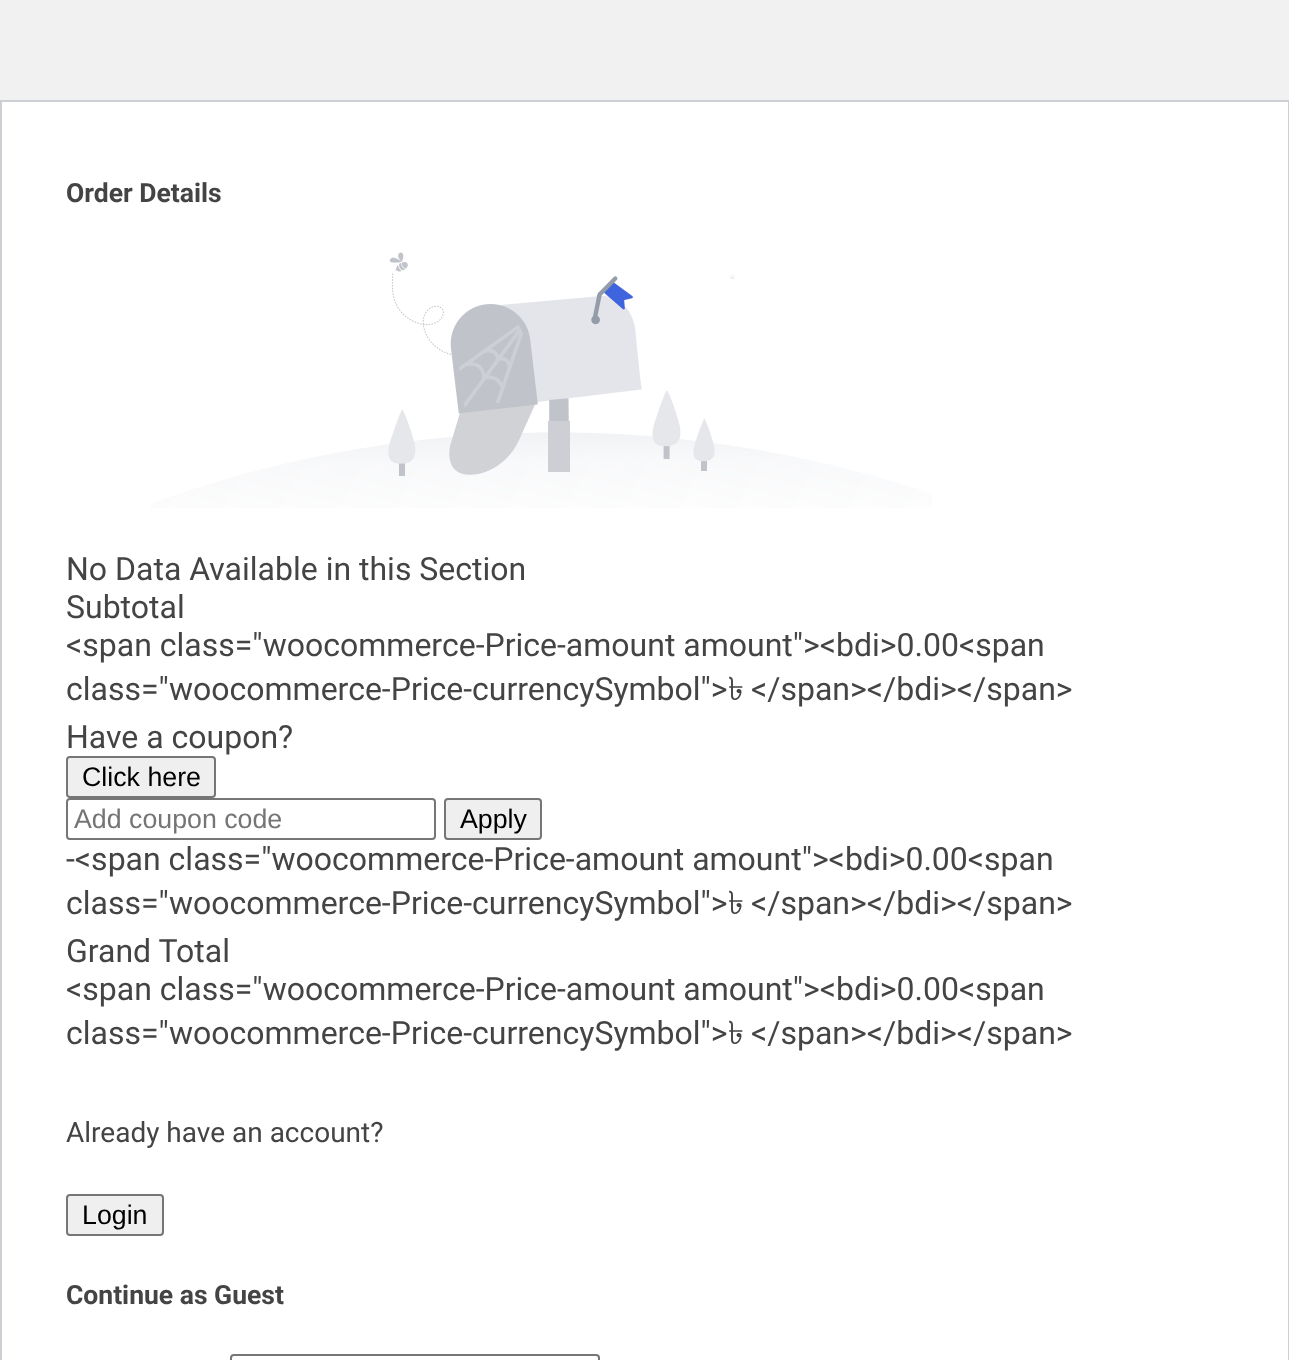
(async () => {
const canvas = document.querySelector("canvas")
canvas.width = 1289
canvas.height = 1360
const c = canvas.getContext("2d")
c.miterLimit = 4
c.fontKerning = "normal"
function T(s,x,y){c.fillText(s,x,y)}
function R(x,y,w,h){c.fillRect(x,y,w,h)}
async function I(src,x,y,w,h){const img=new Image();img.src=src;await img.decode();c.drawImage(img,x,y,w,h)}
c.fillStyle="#f1f1f1"
R(0,0,1289,1360)
c.fillStyle="#fff"
c.beginPath()
c.rect(1,101,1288,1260)
c.fill()
c.strokeStyle="#ccd0d4"
c.lineWidth=2
c.stroke()
c.font="bold 26.5px Roboto"
c.fillStyle="#444"
T("Order Details",66,202)
await I("1.png",151,252,781,256)
c.font="32px Roboto"
T("No Data Available in this Section",66,580)
T("Subtotal",66,618)
T("<span class=\"woocommerce-Price-amount amount\"><bdi>0.00<span",66,656)
T("class=\"woocommerce-Price-currencySymbol\">",66,700)
c.font="32px Lohit Bengali"
T("৳",728,700)
c.font="32px Roboto"
T("<\/span><\/bdi><\/span>",751,700)
T("Have a coupon?",66,748)
c.fillStyle="#efefef"
c.beginPath()
c.roundRect(67,757,148,40,3)
c.fill()
c.strokeStyle="#767676"
c.stroke()
c.font="26.75px Liberation Sans"
c.fillStyle="#000"
T("Click here",82,786)
c.beginPath()
c.roundRect(67,799,368,40,3)
c.stroke()
c.fillStyle="#757575"
T("Add coupon code",74,828)
c.fillStyle="#efefef"
c.beginPath()
c.roundRect(445,799,96,40,3)
c.fill()
c.stroke()
c.fillStyle="#000"
T("Apply",460,828)
c.font="32px Roboto"
c.fillStyle="#444"
T("-<span class=\"woocommerce-Price-amount amount\"><bdi>0.00<span",66,870)
T("class=\"woocommerce-Price-currencySymbol\">",66,914)
c.font="32px Lohit Bengali"
T("৳",728,914)
c.font="32px Roboto"
T("<\/span><\/bdi><\/span>",751,914)
T("Grand Total",66,962)
T("<span class=\"woocommerce-Price-amount amount\"><bdi>0.00<span",66,1000)
T("class=\"woocommerce-Price-currencySymbol\">",66,1044)
c.font="32px Lohit Bengali"
T("৳",728,1044)
c.font="32px Roboto"
T("<\/span><\/bdi><\/span>",751,1044)
c.font="28px Roboto"
T("Already have an account?",66,1142)
c.fillStyle="#efefef"
c.beginPath()
c.roundRect(67,1195,96,40,3)
c.fill()
c.stroke()
c.font="26.75px Liberation Sans"
c.fillStyle="#000"
T("Login",82,1224)
c.font="bold 26.5px Roboto"
c.fillStyle="#444"
T("Continue as Guest",66,1304)
c.beginPath()
c.roundRect(231,1355,368,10,3)
c.stroke()
})()
